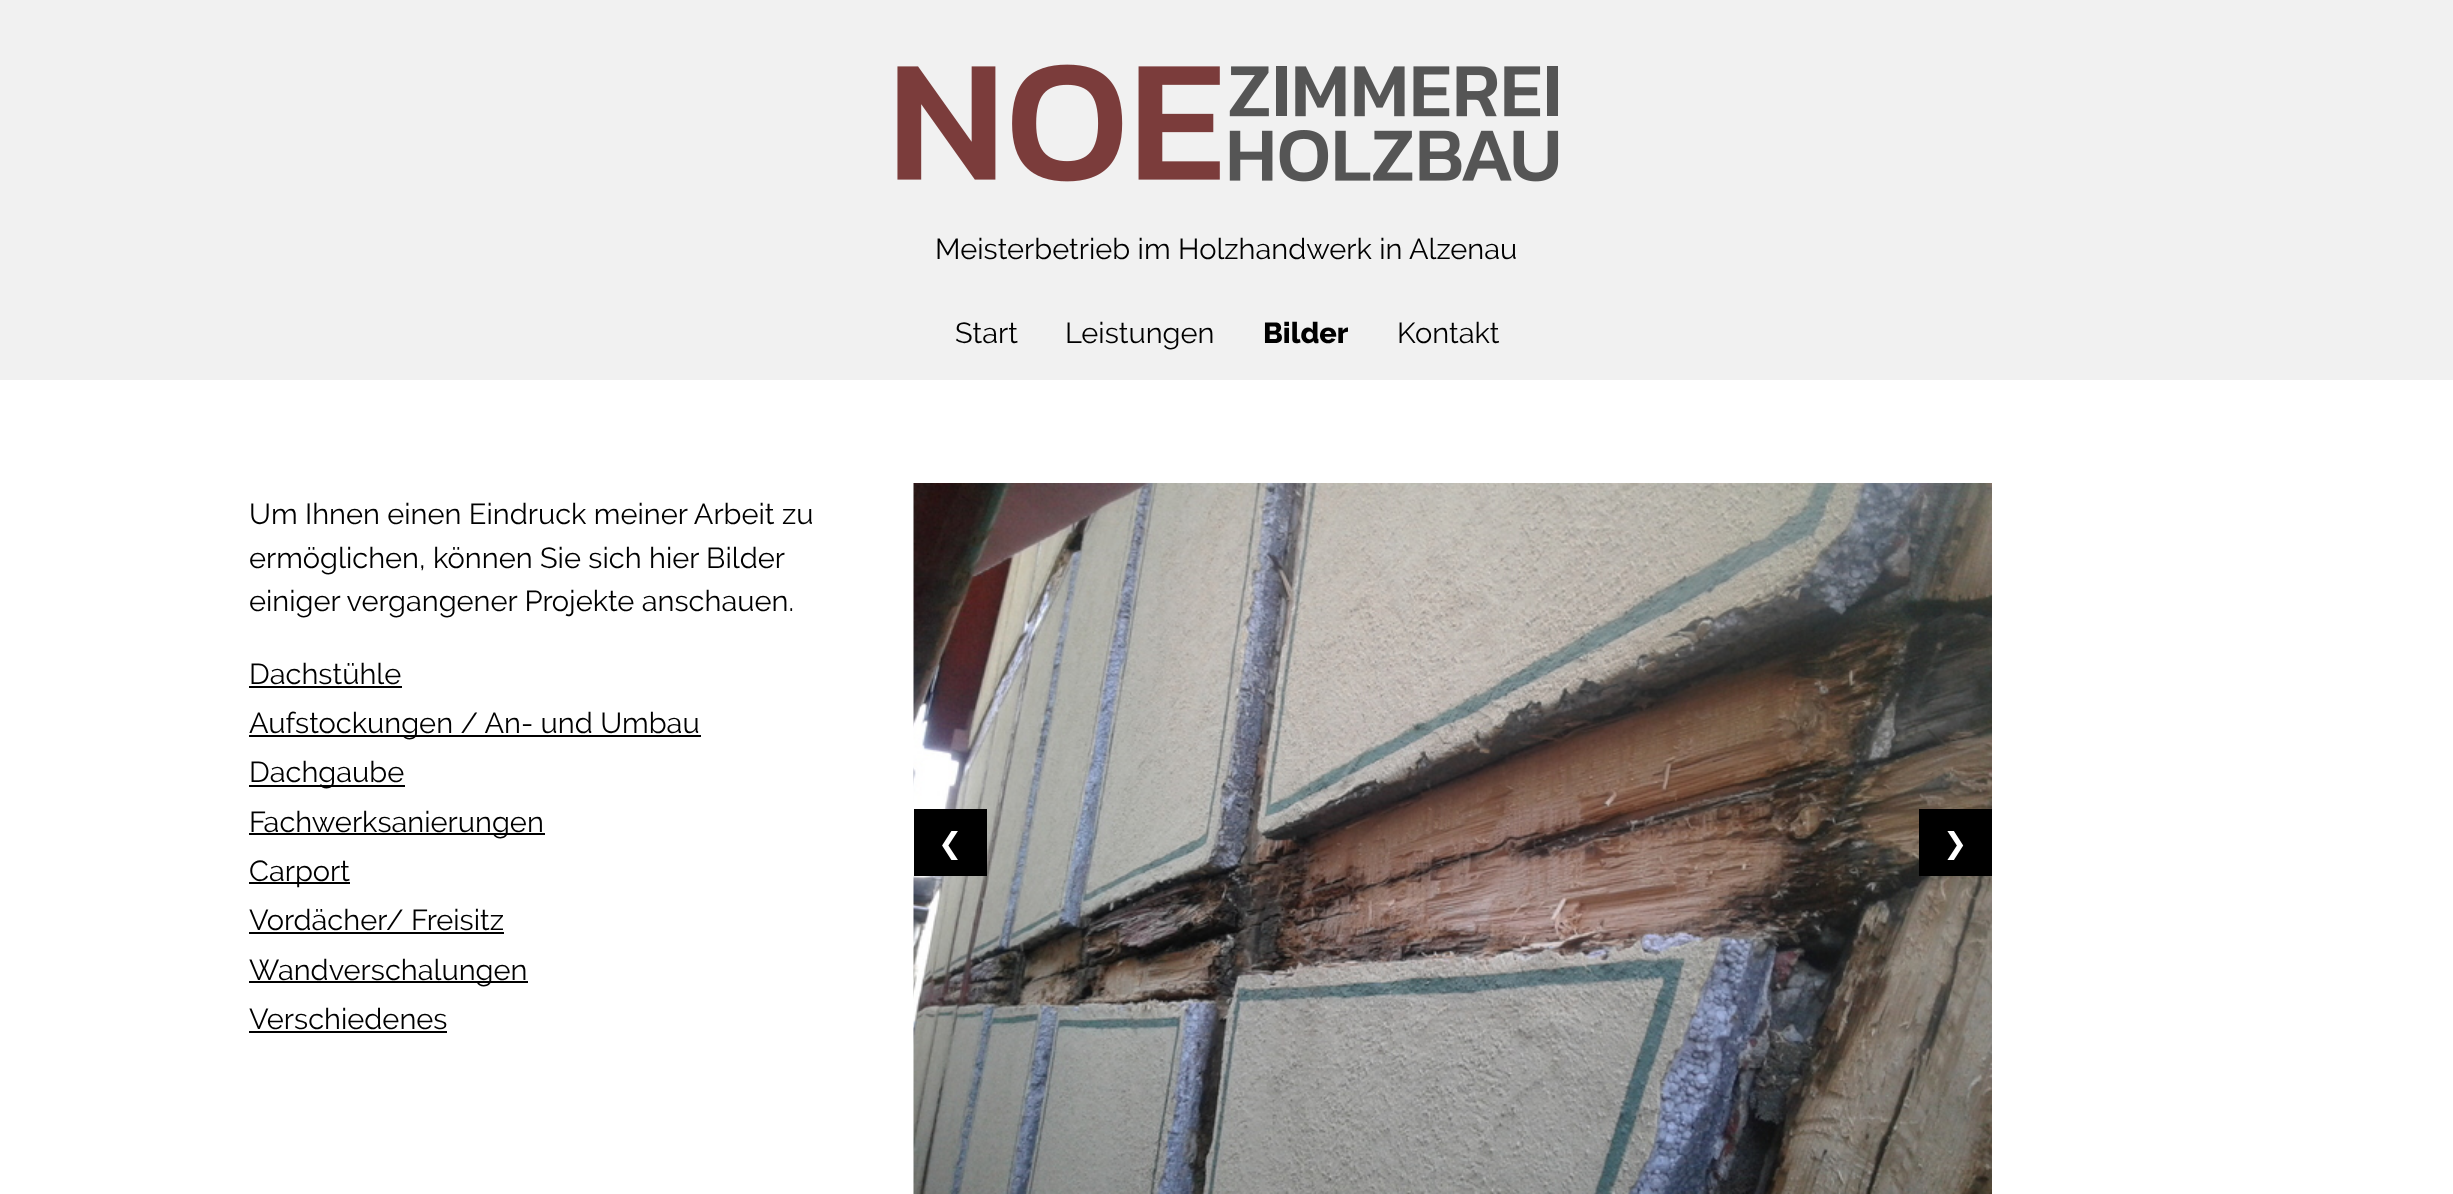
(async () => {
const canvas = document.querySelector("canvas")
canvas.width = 2453
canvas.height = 1194
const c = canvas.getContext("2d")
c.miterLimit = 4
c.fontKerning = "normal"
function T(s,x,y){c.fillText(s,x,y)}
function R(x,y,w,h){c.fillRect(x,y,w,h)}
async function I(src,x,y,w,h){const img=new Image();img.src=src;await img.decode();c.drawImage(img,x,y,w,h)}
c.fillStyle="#fff"
R(0,0,2453,1194)
c.fillStyle="#f1f1f1"
R(0,0,2453,380)
await I("1.png",897,64,662,118)
c.font="29px Raleway"
c.fillStyle="#000"
T("Meisterbetrieb im Holzhandwerk in Alzenau",935,259)
T("Start",955,343)
T("Leistungen",1065,343)
c.font="800 29px Raleway"
T("Bilder",1263,343)
c.font="29px Raleway"
T("Kontakt",1397,343)
T("Um Ihnen einen Eindruck meiner Arbeit zu",249,524)
T("ermöglichen,",249,568)
T("können Sie sich hier Bilder",433,568)
T("einiger vergangener Projekte anschauen.",249,611)
T("Dachstühle",249,684)
R(249,686,153,2)
R(249,735,452,2)
T("Aufstockungen / An- und Umbau",249,733)
R(249,785,156,2)
T("Dachgaube",249,782)
R(249,833,296,2)
T("Fachwerksanierungen",249,832)
R(249,882,101,2)
T("Carport",249,881)
T("Vordächer/ Freisitz",249,930)
R(249,932,255,2)
R(249,981,279,2)
T("Wandverschalungen",249,980)
T("Verschiedenes",249,1029)
R(249,1031,198,2)
await I("2.png",913,483,1079,711)
R(914,809,73,67)
c.font="29px DejaVu Sans"
c.fillStyle="#fff"
T("❮",938,853)
c.fillStyle="#000"
R(1919,809,73,67)
c.fillStyle="#fff"
T("❯",1943,853)
})()
